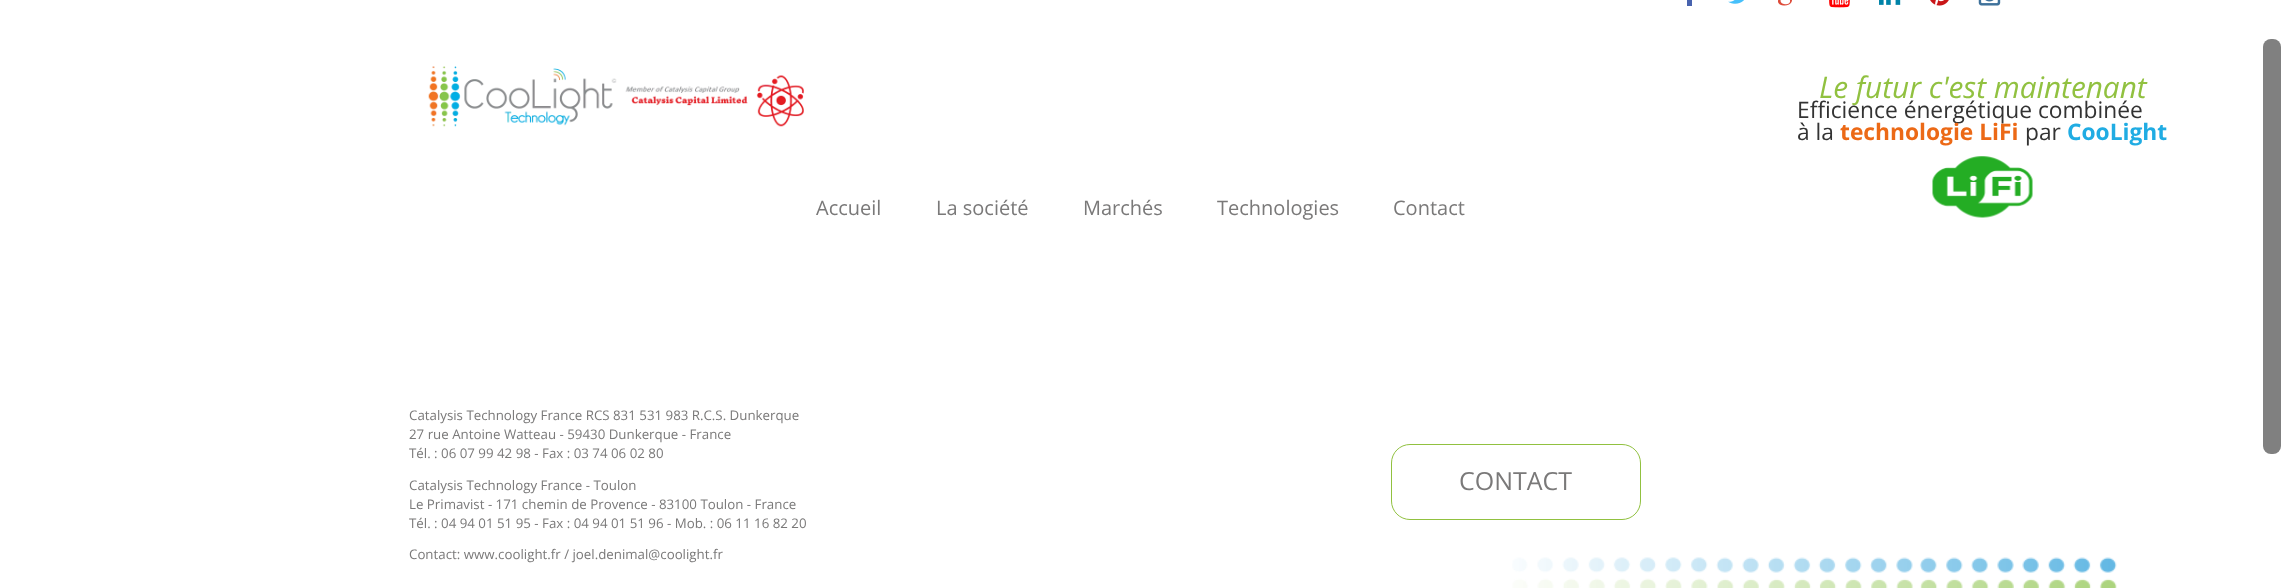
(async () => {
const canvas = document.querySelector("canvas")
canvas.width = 2281
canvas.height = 588
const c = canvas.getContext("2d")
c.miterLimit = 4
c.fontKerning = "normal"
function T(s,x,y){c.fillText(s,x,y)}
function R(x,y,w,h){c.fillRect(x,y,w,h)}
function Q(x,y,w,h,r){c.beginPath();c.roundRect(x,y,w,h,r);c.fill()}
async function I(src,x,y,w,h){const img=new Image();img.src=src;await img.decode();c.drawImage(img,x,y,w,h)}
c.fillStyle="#fff"
R(0,0,2281,588)
c.fillStyle="#4863ae"
R(1687,0,5,6)
await I("1.png",1728,0,16,4)
await I("2.png",1778,0,14,6)
await I("3.png",1829,0,21,8)
await I("4.png",1879,0,22,5)
await I("5.png",1930,0,19,6)
await I("6.png",1978,0,23,6)
c.font="italic 29.75px Open Sans"
c.fillStyle="#91c140"
T("Le futur c'est maintenant",1819,98)
c.font="22.75px Open Sans"
c.fillStyle="#333"
T("Efficience énergétique combinée",1797,118)
T("à la",1797,140)
c.font="bold 22.75px Open Sans"
c.fillStyle="#ec6916"
T("technologie LiFi",1840,140)
c.font="22.75px Open Sans"
c.fillStyle="#333"
T("par",2025,140)
c.font="bold 22.75px Open Sans"
c.fillStyle="#20ace3"
T("CooLight",2067,140)
await I("7.png",1932,156,101,62)
await I("8.png",428,66,376,61)
c.font="20px Open Sans"
c.fillStyle="#7a7979"
T("Accueil",816,215)
T("La société",936,215)
T("Marchés",1083,215)
T("Technologies",1217,215)
T("Contact",1393,215)
c.font="13.3px Open Sans"
T("Catalysis Technology France RCS 831 531 983 R.C.S. Dunkerque",409,420)
T("27 rue Antoine Watteau - 59430 Dunkerque - France",409,439)
T("Tél. : 06 07 99 42 98 - Fax : 03 74 06 02 80",409,458)
T("Catalysis Technology France - Toulon",409,490)
T("Le Primavist - 171 chemin de Provence - 83100 Toulon - France",409,509)
T("Tél. : 04 94 01 51 95 - Fax : 04 94 01 51 96 - Mob. : 06 11 16 82 20",409,528)
T("Contact: www.coolight.fr / joel.denimal@coolight.fr",409,559)
c.beginPath()
c.roundRect(1391.5,444.5,249,75,18.5)
c.strokeStyle="#91c140"
c.stroke()
c.font="25px Open Sans"
T("CONTACT",1459,490)
await I("9.png",1512,557,605,31)
c.fillStyle="#808080"
Q(2263,39,18,415,8)
})()
